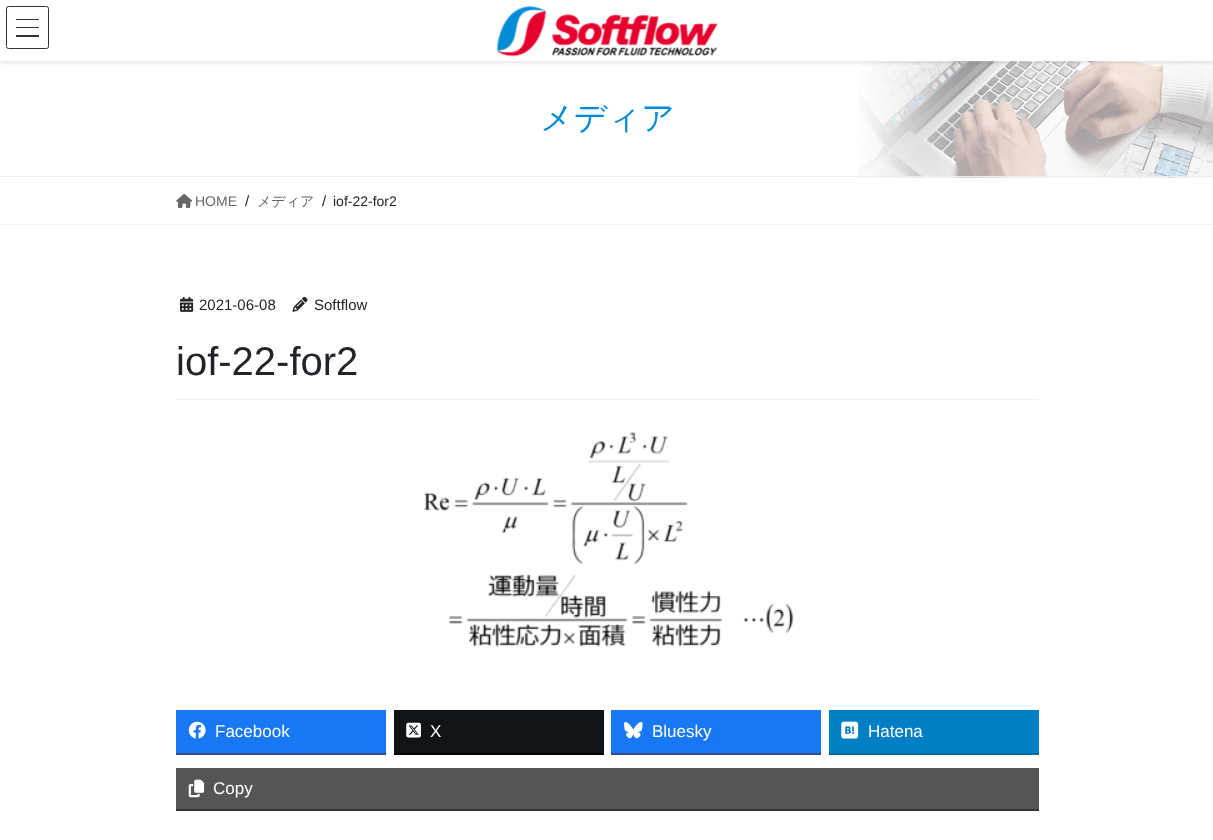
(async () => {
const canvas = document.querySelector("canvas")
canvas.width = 1213
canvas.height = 840
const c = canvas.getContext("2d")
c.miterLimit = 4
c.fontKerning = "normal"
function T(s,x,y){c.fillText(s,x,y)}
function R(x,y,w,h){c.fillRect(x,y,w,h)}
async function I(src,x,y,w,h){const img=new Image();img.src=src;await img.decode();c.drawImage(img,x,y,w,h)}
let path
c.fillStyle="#fff"
R(0,0,1213,840)
await I("2.png",858,61,355,117)
c.save()
c.beginPath()
c.rect(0,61,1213,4)
c.clip()
c.fillStyle="#0000001a"
c.filter="blur(2px)"
c.beginPath()
c.rect(0,1,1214,62)
c.fill()
c.filter="none"
c.restore()
await I("1.png",497,6,221,51)
c.fillStyle="#333"
R(16,19,23,1)
R(16,27,23,1)
R(16,35,23,2)
c.beginPath()
c.roundRect(6.5,6.5,42,42,2)
c.strokeStyle="#333"
c.stroke()
c.fillStyle="#eee"
R(0,176,1213,1)
c.font="500 33px WenQuanYi Zen Hei"
c.fillStyle="#008cd6"
T("メディア",540,129)
c.fillStyle="#f3f3f3"
R(0,224,1213,1)
await I("3.png",176,194,16,14)
c.font="14px Liberation Sans"
c.fillStyle="#666"
T("HOME",195,206)
c.font="15px Liberation Sans"
c.fillStyle="#212529"
T("/",245,206)
c.font="500 14px WenQuanYi Zen Hei"
c.fillStyle="#666"
T("メディア",257,206)
c.font="15px Liberation Sans"
c.fillStyle="#212529"
T("/",322,206)
c.font="14px Liberation Sans"
T("iof-22-for2",333,206)
c.fillStyle="#f2f2f2"
R(176,399,863,1)
await I("4.png",180,296,14,16)
c.font="15px Liberation Sans"
c.fillStyle="#212529"
T("2021-06-08",199,310)
await I("5.png",292,296,16,16)
T("Softflow",314,310)
c.font="40px Liberation Sans"
T("iof-22-for2",176,375)
await I("6.png",423,432,371,215)
c.fillStyle="#344e84"
path = new Path2D("M176 713v42h210v-3h-210z")
c.fill(path)
c.fillStyle="#1877f2"
R(176,710,210,43)
await I("7.png",188,721,18,18)
c.font="17px Liberation Sans"
c.fillStyle="#fff"
T("Facebook",215,737)
c.fillStyle="#000"
path = new Path2D("M394 752v3h210v-42v39z")
c.fill(path)
c.fillStyle="#0f1419"
R(394,710,210,43)
await I("8.png",406,722,15,16)
c.fillStyle="#fff"
T("X",430,737)
c.fillStyle="#344e84"
path = new Path2D("M611 713v42h210v-3h-210z")
c.fill(path)
c.fillStyle="#1877f2"
R(611,710,210,43)
await I("9.png",624,722,19,17)
c.fillStyle="#fff"
T("Bluesky",652,737)
c.fillStyle="#00679f"
path = new Path2D("M829 752v3h210v-42v39z")
c.fill(path)
c.fillStyle="#007fc5"
R(829,710,210,43)
await I("10.png",841,721,18,18)
c.fillStyle="#fff"
T("Hatena",868,737)
c.fillStyle="#333"
path = new Path2D("M176 770v41h863v-41v39h-863z")
c.fill(path)
c.fillStyle="#555"
R(176,768,863,41)
await I("11.png",188,779,17,19)
c.fillStyle="#fff"
T("Copy",213,794)
})()
